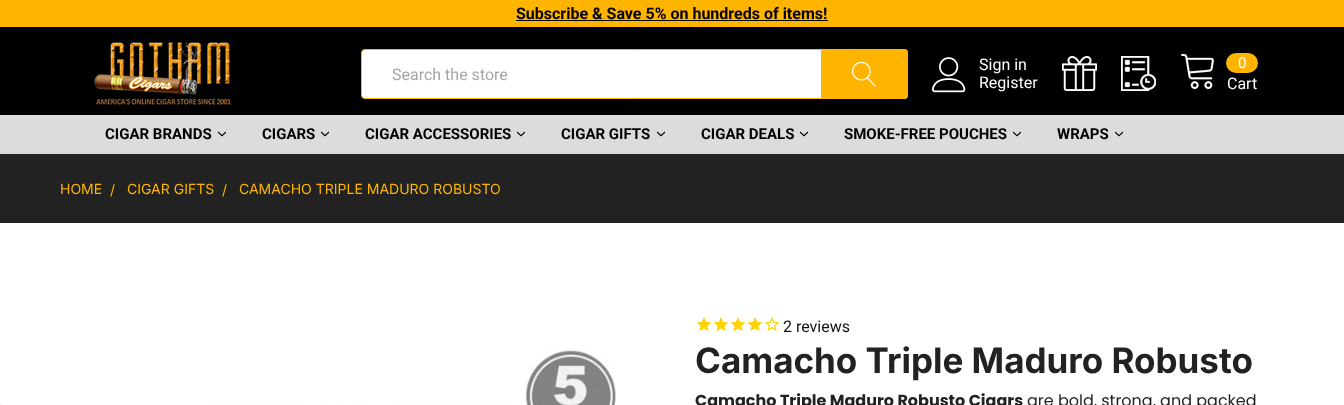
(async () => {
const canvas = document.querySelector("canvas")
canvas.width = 1344
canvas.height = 405
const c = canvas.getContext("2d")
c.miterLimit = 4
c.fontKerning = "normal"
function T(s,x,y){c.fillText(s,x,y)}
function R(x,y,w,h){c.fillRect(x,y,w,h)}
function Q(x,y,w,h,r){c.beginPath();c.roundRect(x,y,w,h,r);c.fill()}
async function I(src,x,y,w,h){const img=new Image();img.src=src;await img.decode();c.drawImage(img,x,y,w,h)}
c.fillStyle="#fff"
R(0,0,1344,405)
c.fillStyle="#ffb400"
R(0,0,1344,27)
c.font="bold 16px Roboto"
c.fillStyle="#000"
T("Subscribe & Save 5% on hundreds of items!",516,19)
R(516,20,312,1)
R(0,27,1344,88)
await I("1.png",94,42,138,63)
c.fillStyle="#fff"
c.beginPath()
c.roundRect(361.5,49.5,546,49,3.5)
c.fill()
c.strokeStyle="#ffb400"
c.stroke()
c.font="16px Roboto"
c.fillStyle="#a5a5a5"
T("Search the store",392,80)
c.fillStyle="#ffb400"
c.beginPath()
c.roundRect(821,49,87,50,[0,4,4,0])
c.fill()
await I("2.png",852,61,24,26)
await I("3.png",932,57,34,36)
c.fillStyle="#fff"
T("Sign in",979,70)
T("Register",979,88)
await I("4.png",1062,56,35,35)
await I("5.png",1121,56,35,35)
await I("6.png",1181,54,33,35)
c.fillStyle="#ffb400"
Q(1226,53,32,20,10)
c.font="15px Roboto"
c.fillStyle="#fff"
T("0",1238,68)
c.font="16px Roboto"
T("Cart",1227,89)
c.fillStyle="#dcdcdc"
R(0,115,1344,39)
c.font="bold 15px Roboto"
c.fillStyle="#000"
T("CIGAR BRANDS",105,139)
await I("7.png",218,131,8,6)
T("CIGARS",262,139)
await I("7.png",321,131,8,6)
T("CIGAR ACCESSORIES",365,139)
await I("7.png",517,131,8,6)
T("CIGAR GIFTS",561,139)
await I("7.png",657,131,8,6)
T("CIGAR DEALS",701,139)
await I("7.png",800,131,8,6)
T("SMOKE-FREE POUCHES",844,139)
await I("7.png",1013,131,8,6)
T("WRAPS",1057,139)
await I("7.png",1115,131,8,6)
c.fillStyle="#f5f5f5"
R(0,403,2,2)
c.fillStyle="#222"
R(0,154,1344,69)
c.font="14px Inter"
c.fillStyle="#ffb400"
T("HOME",60,194)
T("/",110,195)
T("CIGAR GIFTS",127,194)
T("/",222,195)
T("CAMACHO TRIPLE MADURO ROBUSTO",239,194)
await I("8.png",213,350,403,55)
await I("9.png",696,317,16,15)
await I("9.png",713,317,16,15)
await I("9.png",730,317,16,15)
await I("9.png",747,317,16,15)
await I("10.png",764,317,16,15)
c.font="16px Roboto"
c.fillStyle="#131313"
T("2 reviews",783,332)
c.font="bold 35px Inter"
c.fillStyle="#222"
T("Camacho Triple Maduro Robusto",695,373)
c.font="bold 16px Poppins"
T("Camacho Triple Maduro Robusto Cigars",695,406)
c.font="16px Poppins"
T("are bold, strong, and packed",1027,406)
})()
